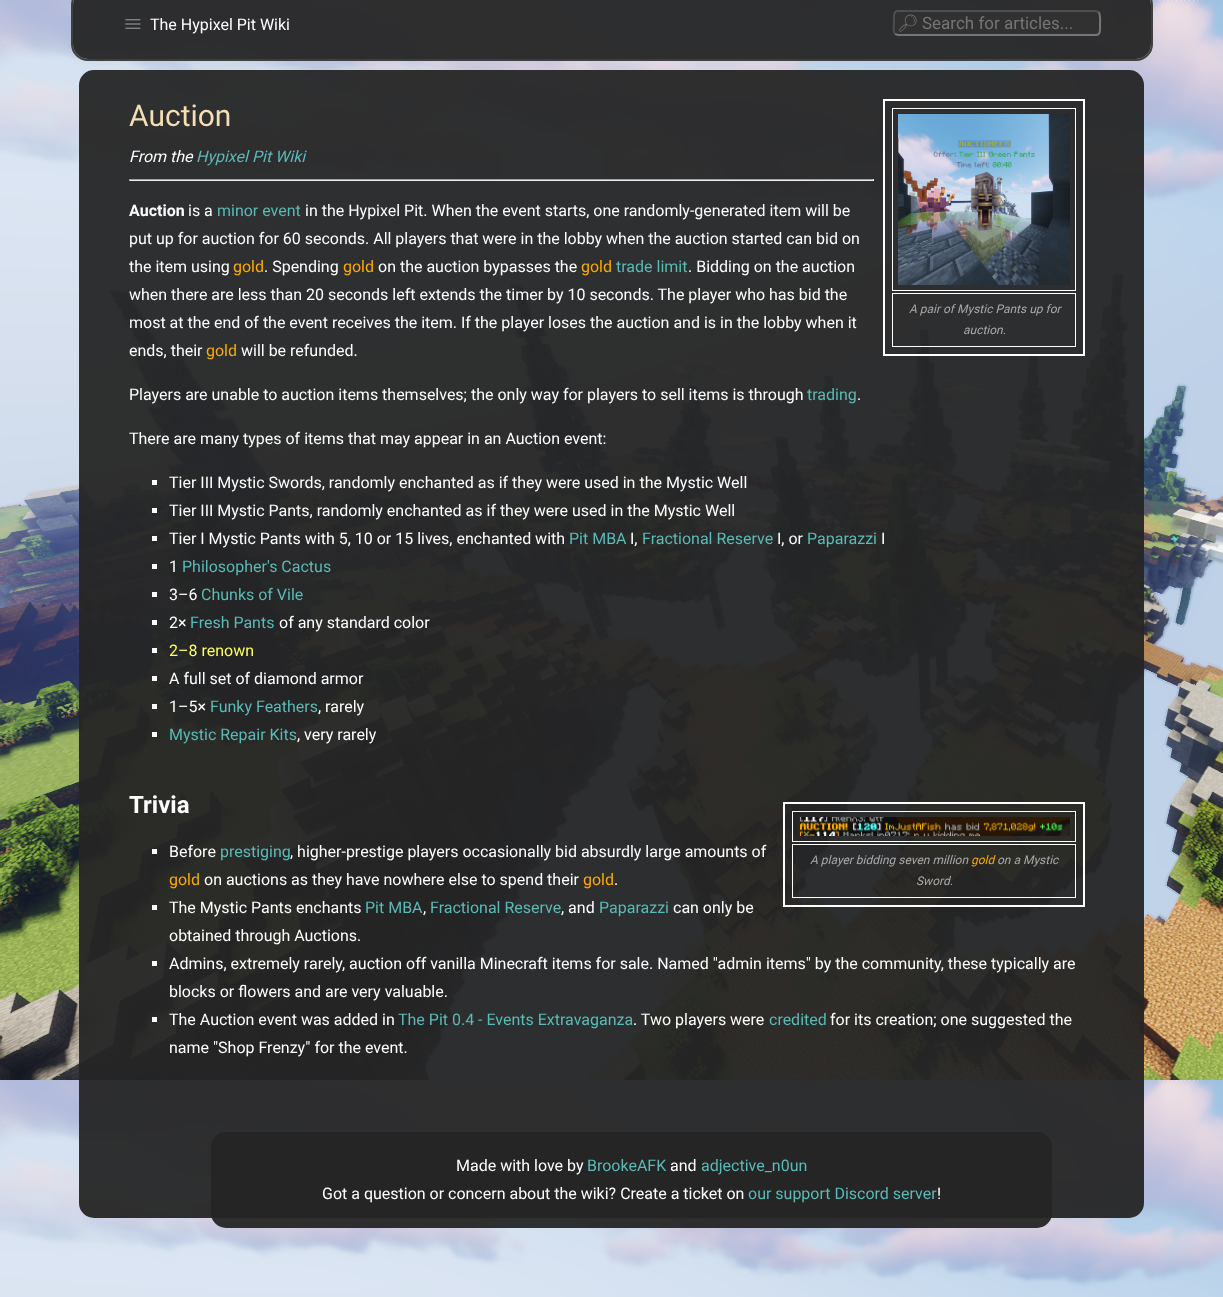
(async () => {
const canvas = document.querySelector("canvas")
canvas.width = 1223
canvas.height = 1297
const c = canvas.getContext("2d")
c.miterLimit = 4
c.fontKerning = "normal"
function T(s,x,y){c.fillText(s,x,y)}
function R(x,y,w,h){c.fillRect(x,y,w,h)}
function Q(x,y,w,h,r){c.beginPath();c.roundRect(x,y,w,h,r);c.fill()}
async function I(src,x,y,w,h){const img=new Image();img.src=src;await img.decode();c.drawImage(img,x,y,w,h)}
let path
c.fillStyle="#fff"
R(0,0,1223,1297)
await I("1.png",0,0,1223,1297)
c.fillStyle="#252525f2"
Q(73,-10,1078,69,15)
c.beginPath()
c.roundRect(72,-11,1080,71,16)
c.strokeStyle="#3f3f3f"
c.lineWidth=2
c.stroke()
await I("2.png",125,19,16,10)
c.font="16px Roboto"
c.fillStyle="#fff"
T("The Hypixel Pit Wiki",150,30)
c.fillStyle="#313131"
Q(893,10,208,26,5)
path = new Path2D("M1098.5 12c2.5 2.5 1.5 10.5 1.5 13.5c0 3.5 1 9.5-4 9.5h-198l-3-1")
c.strokeStyle="#767676"
c.stroke(path)
path = new Path2D("M895 34c-2.5-2.5-1-10.5-1-13.5c0-3.5-1-9.5 4-9.5h198l2.5 1")
c.strokeStyle="#4f4f4f"
c.stroke(path)
c.font="17px Noto Emoji"
c.fillStyle="#757575"
T("🔎︎",897,29)
c.font="17px Roboto"
T("Search for articles...",922,29)
c.fillStyle="#252525f2"
Q(79,70,1065,1148,15)
c.font="30px Roboto"
c.fillStyle="#f5deb3"
T("Auction",129,126)
c.font="italic 16px Roboto"
c.fillStyle="#fff"
T("From the",129,162)
c.fillStyle="#5abbb7"
T("Hypixel Pit Wiki",196,162)
c.fillStyle="#9f9f9f"
R(129,179,745,1)
c.fillStyle="#eee"
R(873,179,1,2)
R(129,180,745,1)
c.fillStyle="#9f9f9f"
R(129,179,1,2)
c.font="bold 16px Roboto"
c.fillStyle="#fff"
T("Auction",129,216)
c.font="16px Roboto"
T("is a",188,216)
c.fillStyle="#5abbb7"
T("minor event",217,216)
c.fillStyle="#fff"
T("in the Hypixel Pit. When the event starts, one randomly-generated item will be",305,216)
T("put up for auction for 60 seconds. All players that were in the lobby when the auction started can bid on",129,244)
T("the item using",129,272)
c.fillStyle="#fa0"
T("gold",233,272)
c.fillStyle="#fff"
T(". Spending",264,272)
c.fillStyle="#fa0"
T("gold",343,272)
c.fillStyle="#fff"
T("on the auction bypasses the",378,272)
c.fillStyle="#fa0"
T("gold",581,272)
c.fillStyle="#5abbb7"
T("trade limit",616,272)
c.fillStyle="#fff"
T(". Bidding on the auction",688,272)
T("when there are less than 20 seconds left extends the timer by 10 seconds. The player who has bid the",129,300)
T("most at the end of the event receives the item. If the player loses the auction and is in the lobby when it",129,328)
T("ends, their",129,356)
c.fillStyle="#fa0"
T("gold",206,356)
c.fillStyle="#fff"
T("will be refunded.",241,356)
c.strokeStyle="#fff"
c.lineWidth=1
c.strokeRect(884.5,100.5,199,254)
c.strokeRect(892.5,108.5,183,182)
await I("3.png",898,114,172,171)
c.strokeRect(892.5,293.5,183,53)
c.strokeRect(883.5,99.5,201,256)
c.font="italic 12px Roboto"
c.fillStyle="#aaa"
T("A pair of Mystic Pants up for",909,313)
T("auction.",963,334)
c.font="16px Roboto"
c.fillStyle="#fff"
T("Players are unable to auction items themselves; the only way for players to sell items is through",129,400)
c.fillStyle="#5abbb7"
T("trading",807,400)
c.fillStyle="#fff"
T(".",857,400)
T("There are many types of items that may appear in an Auction event:",129,444)
R(152,480,5,5)
T("Tier III Mystic Swords, randomly enchanted as if they were used in the Mystic Well",169,488)
R(152,508,5,5)
T("Tier III Mystic Pants, randomly enchanted as if they were used in the Mystic Well",169,516)
R(152,536,5,5)
T("Tier I Mystic Pants with 5, 10 or 15 lives, enchanted with",169,544)
c.fillStyle="#5abbb7"
T("Pit MBA",569,544)
c.fillStyle="#fff"
T("I,",630,544)
c.fillStyle="#5abbb7"
T("Fractional Reserve",642,544)
c.fillStyle="#fff"
T("I, or",777,544)
c.fillStyle="#5abbb7"
T("Paparazzi",807,544)
c.fillStyle="#fff"
T("I",881,544)
R(152,564,5,5)
T("1",169,572)
c.fillStyle="#5abbb7"
T("Philosopher's Cactus",182,572)
c.fillStyle="#fff"
R(152,592,5,5)
T("3–6",169,600)
c.fillStyle="#5abbb7"
T("Chunks of Vile",201,600)
c.fillStyle="#fff"
R(152,620,5,5)
T("2×",169,628)
c.fillStyle="#5abbb7"
T("Fresh Pants",190,628)
c.fillStyle="#fff"
T("of any standard color",279,628)
R(152,648,5,5)
c.fillStyle="#ff5"
T("2–8 renown",169,656)
c.fillStyle="#fff"
R(152,676,5,5)
T("A full set of diamond armor",169,684)
R(152,704,5,5)
T("1–5×",169,712)
c.fillStyle="#5abbb7"
T("Funky Feathers",210,712)
c.fillStyle="#fff"
T(", rarely",318,712)
R(152,732,5,5)
c.fillStyle="#5abbb7"
T("Mystic Repair Kits",169,740)
c.fillStyle="#fff"
T(", very rarely",297,740)
c.font="bold 24px Roboto"
T("Trivia",129,813)
R(152,849,5,5)
c.font="16px Roboto"
T("Before",169,857)
c.fillStyle="#5abbb7"
T("prestiging",220,857)
c.fillStyle="#fff"
T(", higher-prestige players occasionally bid absurdly large amounts of",290,857)
c.fillStyle="#fa0"
T("gold",169,885)
c.fillStyle="#fff"
T("on auctions as they have nowhere else to spend their",204,885)
c.fillStyle="#fa0"
T("gold",583,885)
c.fillStyle="#fff"
T(".",614,885)
R(152,905,5,5)
T("The Mystic Pants enchants",169,913)
c.fillStyle="#5abbb7"
T("Pit MBA",365,913)
T("Fractional Reserve",430,913)
c.fillStyle="#fff"
T(", and",561,913)
c.fillStyle="#5abbb7"
T("Paparazzi",599,913)
c.fillStyle="#fff"
T("can only be",673,913)
T(",",423,913)
T("obtained through Auctions.",169,941)
R(152,961,5,5)
T("Admins, extremely rarely, auction off vanilla Minecraft items for sale. Named \"admin items\" by the community, these typically are",169,969)
T("blocks or flowers and are very valuable.",169,997)
R(152,1017,5,5)
T("The Auction event was added in",169,1025)
c.fillStyle="#5abbb7"
T("The Pit 0.4 - Events Extravaganza",398,1025)
c.fillStyle="#fff"
T(". Two players were",633,1025)
c.fillStyle="#5abbb7"
T("credited",769,1025)
c.fillStyle="#fff"
T("for its creation; one suggested the",830,1025)
T("name \"Shop Frenzy\" for the event.",169,1053)
c.fillStyle="#252525f2"
Q(211,1132,841,96,15)
c.fillStyle="#fff"
T("Made with love by",456,1171)
c.fillStyle="#5abbb7"
T("BrookeAFK",587,1171)
c.fillStyle="#fff"
T("and",670,1171)
c.fillStyle="#5abbb7"
T("adjective_n0un",701,1171)
c.fillStyle="#fff"
T("Got a question or concern about the wiki? Create a ticket on",322,1199)
c.fillStyle="#5abbb7"
T("our support Discord server",748,1199)
c.fillStyle="#fff"
T("!",937,1199)
c.strokeRect(784.5,803.5,299,102)
c.strokeRect(792.5,811.5,283,30)
await I("4.png",798,817,272,19)
c.strokeRect(792.5,844.5,283,53)
c.strokeRect(783.5,802.5,301,104)
c.font="italic 12px Roboto"
c.fillStyle="#aaa"
T("A player bidding seven million",810,864)
c.fillStyle="#fa0"
T("gold",971,864)
c.fillStyle="#aaa"
T("on a Mystic",997,864)
T("Sword.",916,885)
})()
